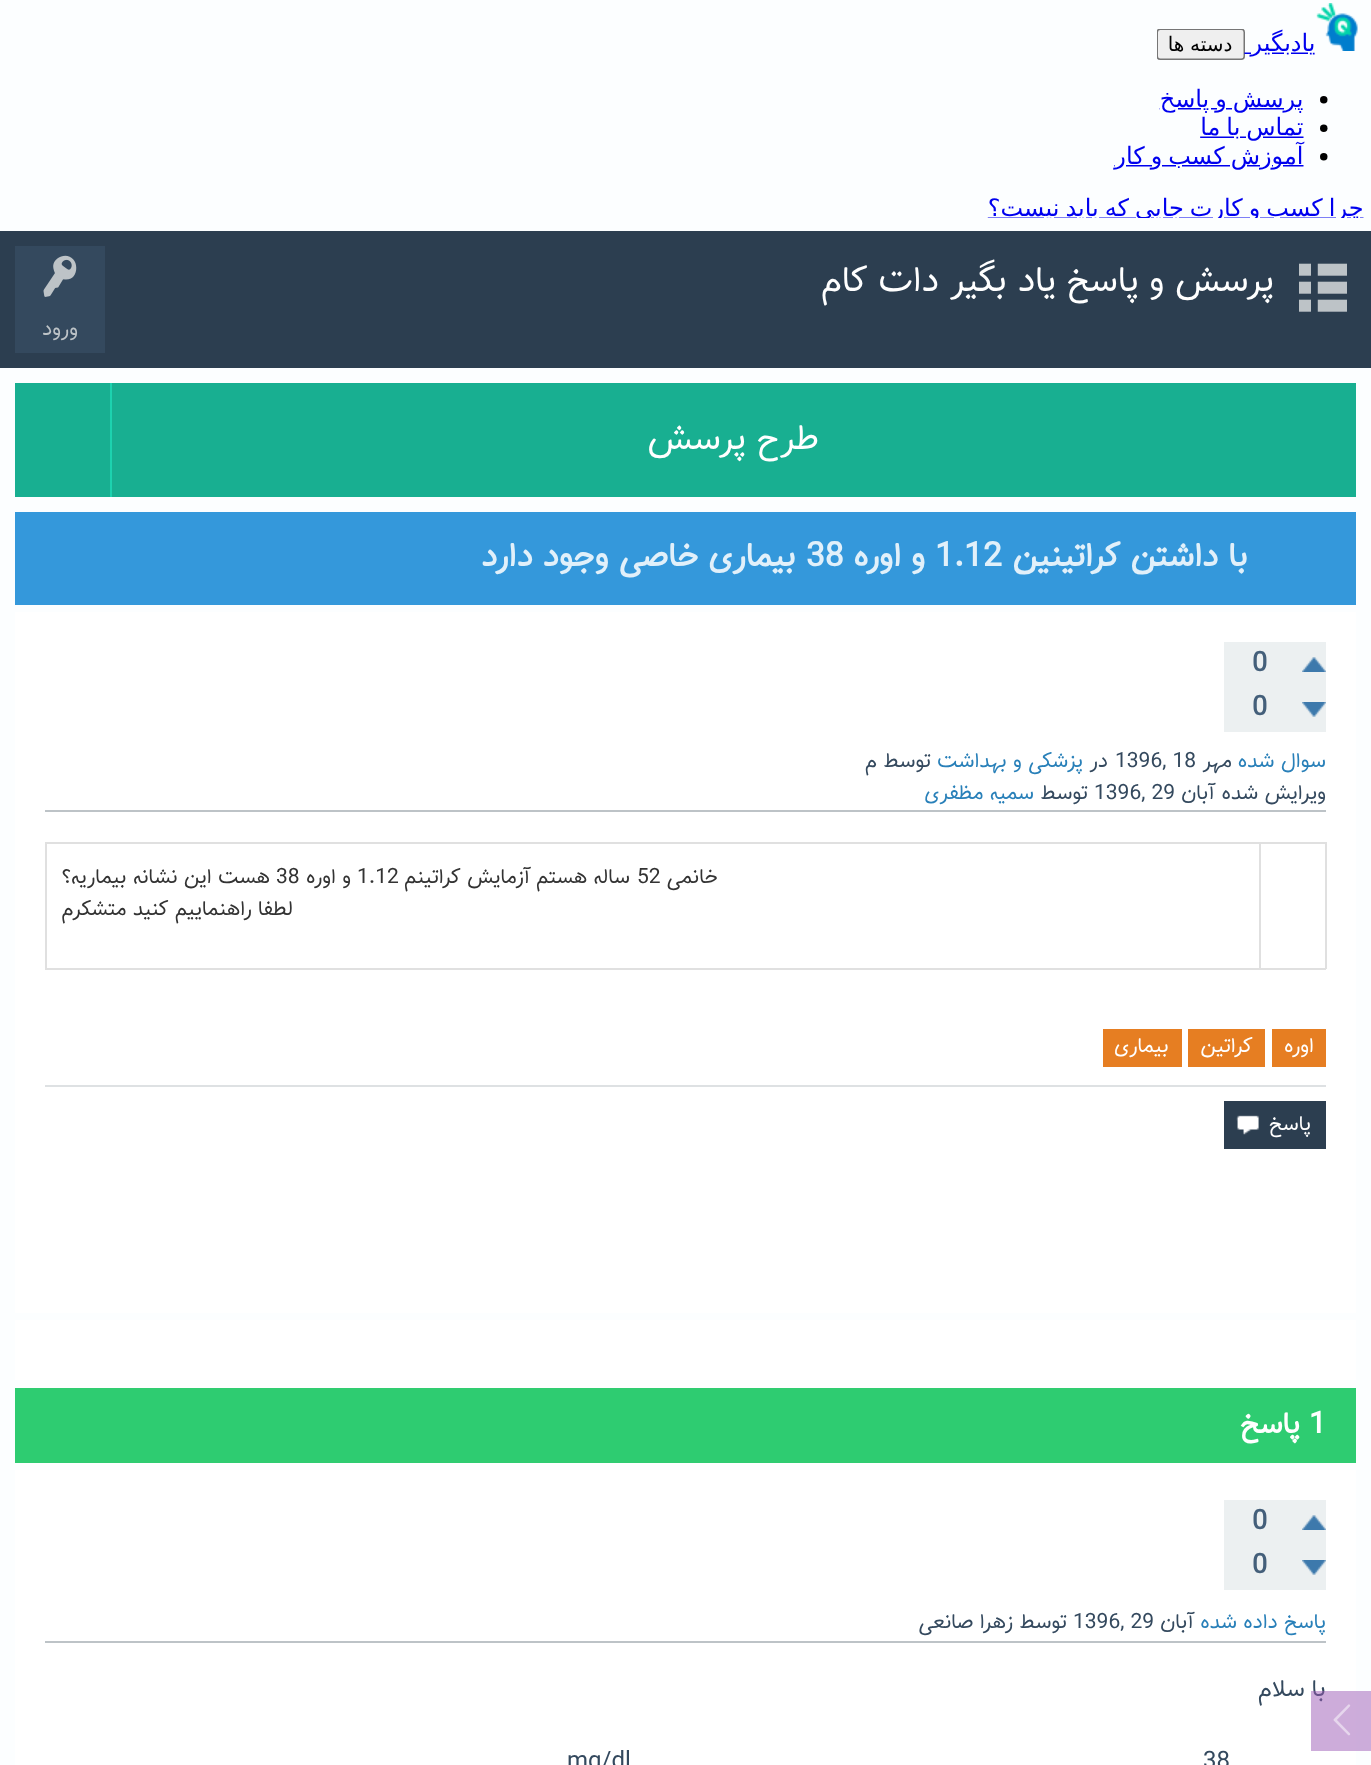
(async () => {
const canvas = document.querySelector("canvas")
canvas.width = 1371
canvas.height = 1765
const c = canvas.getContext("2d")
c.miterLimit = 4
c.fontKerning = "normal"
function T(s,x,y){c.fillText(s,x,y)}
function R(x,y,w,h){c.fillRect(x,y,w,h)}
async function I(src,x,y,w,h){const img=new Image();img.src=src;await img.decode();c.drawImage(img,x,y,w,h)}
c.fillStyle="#fcfeff"
R(0,0,1371,1765)
await I("1.png",987,3,377,215)
c.fillStyle="#2c3e50"
R(0,231,1371,137)
await I("2.png",1299,263,48,49)
c.direction="rtl"
c.font="36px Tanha"
c.fillStyle="#fff"
T("پرسش و پاسخ یاد بگیر دات کام",1274,291)
c.fillStyle="#34495e"
R(15,246,90,107)
await I("3.png",43,255,34,42)
c.font="21px Tanha"
c.fillStyle="#bdc3c7"
T("ورود",78,335)
c.fillStyle="#18af91"
R(112,383,1244,114)
c.font="36px Tanha"
c.fillStyle="#fff"
T("طرح پرسش",819,449)
c.fillStyle="#18af91"
R(15,383,95,114)
c.fillStyle="#1dd2af"
R(110,383,2,114)
c.fillStyle="#fff"
R(15,1470,1341,295)
c.font="24px Tanha"
c.fillStyle="#34495e"
T("با سلام",1326,1696)
c.fillStyle="#9b59b680"
R(1311,1691,60,60)
await I("4.png",1333,1704,18,32)
c.fillStyle="#3498db"
R(15,512,1341,93)
c.font="bold 33.5px Tanha"
c.fillStyle="#e1f0fa"
T("با داشتن کراتینین",1248,566)
c.direction="ltr"
T("1.12",935,566)
c.direction="rtl"
T("و اوره",925,566)
c.direction="ltr"
T("38",806,566)
c.direction="rtl"
T("بیماری خاصی وجود دارد",796,566)
c.fillStyle="#fff"
R(15,612,1341,701)
c.fillStyle="#ecf0f1"
R(1224,642,102,90)
await I("5.png",1302,657,24,15)
await I("6.png",1302,702,24,15)
c.direction="ltr"
c.font="bold 27px Tanha"
c.fillStyle="#445f7a"
T("0",1252,671)
T("0",1252,715)
c.fillStyle="#bdc3c7"
R(45,810,1281,2)
c.direction="rtl"
c.font="21px Tanha"
c.fillStyle="#2980b9"
T("سوال شده",1326,767)
c.fillStyle="#34495e"
T("مهر",1232,767)
c.direction="ltr"
T("1396, 18",1115,767)
c.direction="rtl"
T("در",1108,767)
c.fillStyle="#2980b9"
T("پزشکی و",1083,767)
T("بهداشت",1007,767)
c.fillStyle="#34495e"
T("توسط",931,767)
T("م",877,767)
T("ویرایش شده",1326,799)
T("آبان",1215,799)
c.direction="ltr"
T("1396, 29",1094,799)
c.direction="rtl"
T("توسط",1088,799)
c.fillStyle="#2980b9"
T("سمیه مظفری",1034,799)
c.fillStyle="#e0e0e0"
R(45,842,1215,2)
R(1259,842,2,127)
R(1259,842,67,2)
R(1325,842,2,127)
R(45,968,1215,2)
R(1259,968,67,2)
R(45,842,2,127)
c.fillStyle="#333"
T("خانمی",718,883)
c.direction="ltr"
T("52",637,883)
c.direction="rtl"
T("ساله هستم آزمایش کراتینم",630,883)
c.direction="ltr"
T("1.12",357,883)
c.direction="rtl"
T("و اوره",351,883)
c.direction="ltr"
T("38",276,883)
c.direction="rtl"
T("هست این نشانه بیماریه؟",270,883)
T("لطفا راهنماییم کنید متشکرم",293,915)
c.fillStyle="#e67e22"
R(1272,1029,54,38)
c.fillStyle="#fff"
T("اوره",1314,1052)
c.fillStyle="#e67e22"
R(1188,1029,77,38)
c.fillStyle="#fff"
T("کراتین",1253,1052)
c.fillStyle="#e67e22"
R(1103,1029,79,38)
c.fillStyle="#fff"
T("بیماری",1169,1052)
c.fillStyle="#dee1e3"
R(45,1085,1281,2)
c.fillStyle="#2c3e50"
R(1224,1101,102,48)
await I("7.png",1236,1115,23,20)
c.fillStyle="#fff"
T("پاسخ",1311,1130)
R(15,1320,1341,60)
c.fillStyle="#2ecc71"
R(15,1388,1341,75)
c.direction="ltr"
c.font="bold 30px Tanha"
c.fillStyle="#fff"
T("1",1309,1433)
c.direction="rtl"
T("پاسخ",1300,1433)
c.fillStyle="#ecf0f1"
R(1224,1500,102,90)
await I("5.png",1302,1515,24,15)
await I("6.png",1302,1560,24,15)
c.direction="ltr"
c.font="bold 27px Tanha"
c.fillStyle="#445f7a"
T("0",1252,1529)
T("0",1252,1573)
c.fillStyle="#bdc3c7"
R(45,1641,1281,2)
c.direction="rtl"
c.font="21px Tanha"
c.fillStyle="#2980b9"
T("پاسخ داده شده",1326,1628)
c.fillStyle="#34495e"
T("آبان",1194,1628)
c.direction="ltr"
T("1396, 29",1073,1628)
c.direction="rtl"
T("توسط",1067,1628)
T("زهرا صانعی",1013,1628)
c.direction="ltr"
c.font="24px Tanha"
T("38",1203,1768)
T("mg/dl",567,1768)
})()
